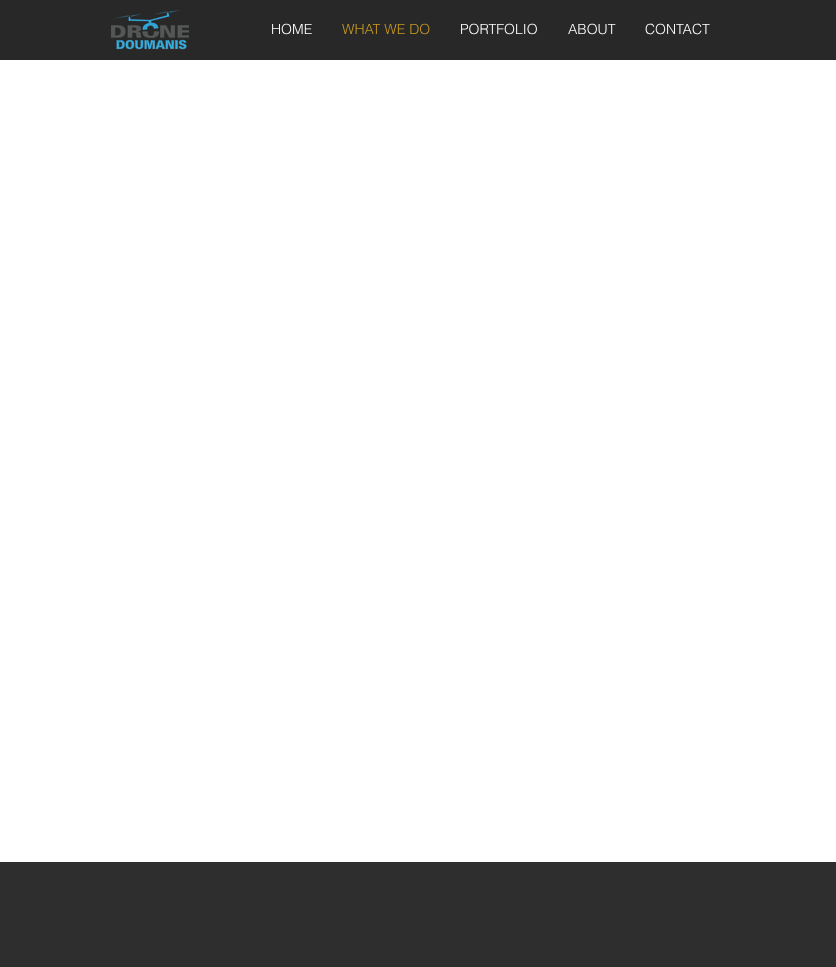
(async () => {
const canvas = document.querySelector("canvas")
canvas.width = 836
canvas.height = 967
const c = canvas.getContext("2d")
c.miterLimit = 4
c.fontKerning = "normal"
function T(s,x,y){c.fillText(s,x,y)}
function R(x,y,w,h){c.fillRect(x,y,w,h)}
async function I(src,x,y,w,h){const img=new Image();img.src=src;await img.decode();c.drawImage(img,x,y,w,h)}
c.fillStyle="#fff"
R(0,0,836,967)
c.fillStyle="#282828"
R(0,0,836,60)
await I("1.png",111,10,78,40)
c.font="300 14px helvetica"
c.fillStyle="#fff"
T("HOME",271,34)
c.fillStyle="#c99a22"
T("WHAT WE DO",342,34)
c.fillStyle="#fff"
T("PORTFOLIO",460,34)
T("ABOUT",568,34)
T("CONTACT",645,34)
c.fillStyle="#2f2e2e"
R(0,862,836,105)
})()
